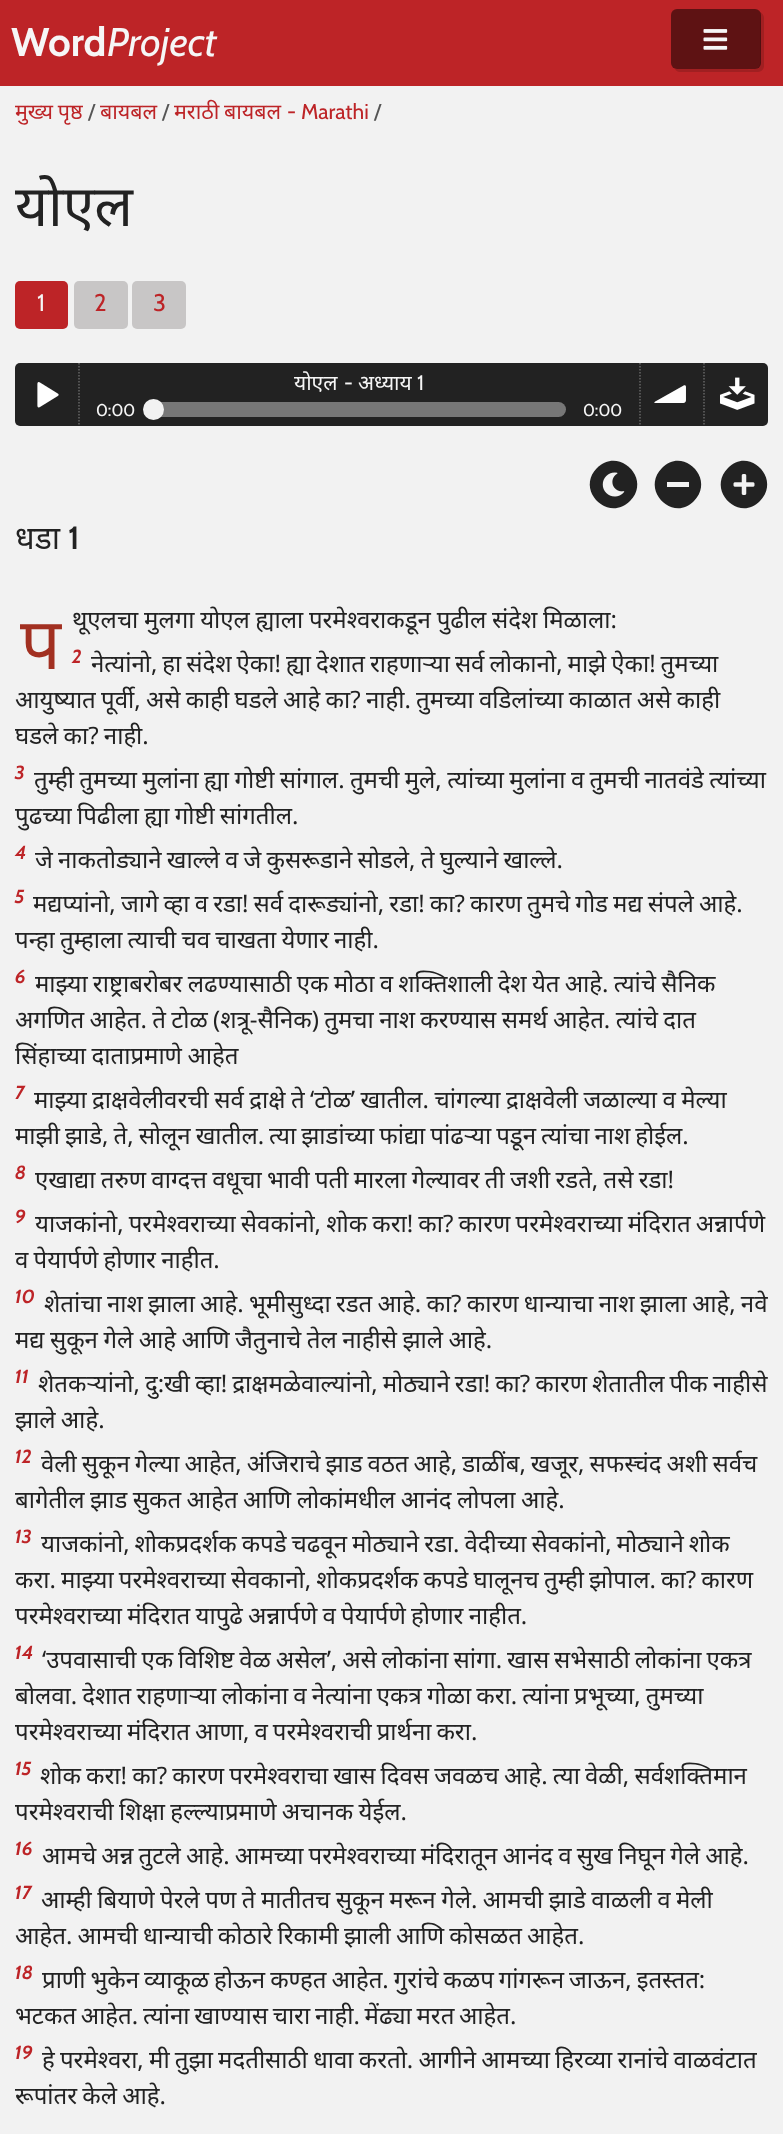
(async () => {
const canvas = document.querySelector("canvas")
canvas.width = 783
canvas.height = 2134
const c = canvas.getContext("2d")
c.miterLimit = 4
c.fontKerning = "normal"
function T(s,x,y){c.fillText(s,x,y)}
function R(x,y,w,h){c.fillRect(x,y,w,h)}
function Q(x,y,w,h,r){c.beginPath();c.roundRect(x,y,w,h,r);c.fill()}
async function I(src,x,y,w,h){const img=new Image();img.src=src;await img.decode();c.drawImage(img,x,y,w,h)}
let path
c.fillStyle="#f2f2f2"
R(0,0,783,2134)
c.fillStyle="#bd2427"
R(0,0,783,86)
c.font="bold 40px Cabin"
c.fillStyle="#f6f6f6"
T("Word",11,56)
c.font="italic 40px Cabin"
T("Project",107,56)
c.fillStyle="#a11f21"
path = new Path2D("M675 69c1 2 3 3 5 3h78c3 0 6-3 6-6v-48c0-3-2-5-4-6c1 3 0 9 0 11v16c0 36 6 30-32 30z")
c.fill(path)
c.fillStyle="#00000080"
Q(671,9,90,60,6)
await I("1.png",703,29,25,21)
c.wordSpacing="-0.75px"
c.font="21.5px Noto Sans"
c.fillStyle="#bd2427"
T("मुख्य पृष्ठ",15,119)
c.wordSpacing="0px"
c.font="21.5px Cabin"
c.fillStyle="#555"
T("/",88,119)
c.font="21.5px Noto Sans"
c.fillStyle="#bd2427"
T("बायबल",100,119)
c.font="21.5px Cabin"
c.fillStyle="#555"
T("/",162,119)
c.font="21.5px Noto Sans"
c.fillStyle="#bd2427"
T("मराठी",174,119)
T("बायबल",224,119)
c.font="21.5px Cabin"
T("- Marathi",287,119)
c.fillStyle="#555"
T("/",374,119)
c.font="57px Noto Sans"
c.fillStyle="#222"
T("योएल",15,226)
c.fillStyle="#bd2427"
Q(15,281,53,48,5)
c.font="24px Cabin"
c.fillStyle="#f6f6f6"
T("1",37,311)
c.fillStyle="#c8c6c6"
Q(74,281,54,48,5)
c.fillStyle="#bd2427"
T("2",94,311)
c.fillStyle="#c8c6c6"
Q(132,281,54,48,5)
c.fillStyle="#bd2427"
T("3",153,311)
c.fillStyle="#222"
Q(15,363,753,63,5)
path = new Path2D("M79 363v63")
c.strokeStyle="#666"
c.lineWidth=1.5
c.setLineDash([1.5,1.5])
c.stroke(path)
await I("2.png",37,382,22,26)
path = new Path2D("M640 363v63")
c.stroke(path)
c.font="21px Noto Sans"
c.fillStyle="#f6f6f6"
T("योएल",294,390)
c.font="21px Cabin"
T("-",344,390)
c.font="21px Noto Sans"
T("अध्याय",358,390)
c.font="21px Cabin"
T("1",417,390)
c.font="17px Cabin"
T("0:00",96,416)
c.fillStyle="#777"
Q(153,402,413,15,7.5)
c.fillStyle="#f2f2f2"
c.beginPath()
c.arc(153.5,409.5,10.5,0,7)
c.fill()
c.fillStyle="#f6f6f6"
T("0:00",583,416)
path = new Path2D("M704 363v63")
c.stroke(path)
await I("3.png",654,385,32,18)
await I("4.png",654,385,32,18)
await I("5.png",720,377,35,33)
c.fillStyle="#222"
path = new Path2D("M597 468c22-22 55 11 33 33c-22 22-55-11-33-33z")
c.fill(path)
await I("6.png",602,472,23,25)
path = new Path2D("M662 468c21-22 54 11 32 33c-21 22-54-11-32-33z")
c.fill(path)
c.fillStyle="#f2f2f2"
R(667,482,22,5)
c.fillStyle="#222"
path = new Path2D("M728 468c21-22 54 11 32 33c-21 22-54-11-32-33z")
c.fill(path)
await I("7.png",733,474,22,21)
c.font="32px Noto Sans"
T("धडा",15,549)
c.font="600 32px Cabin"
T("1",68,549)
c.wordSpacing="-0.5px"
c.font="24px Noto Sans"
T("थूएलचा मुलगा योएल ह्याला परमेश्वराकडून पुढील संदेश मिळाला:",72,628)
c.wordSpacing="0px"
c.font="72px Noto Sans"
c.fillStyle="#a23021"
T("प",20,669)
c.font="italic bold 19px Cabin"
c.fillStyle="#bd2427"
T("2",72,663)
c.wordSpacing="-1.25px"
c.font="24px Noto Sans"
c.fillStyle="#222"
T("नेत्यांनो, हा संदेश ऐका! ह्या देशात राहणाऱ्या सर्व लोकानो, माझे ऐका! तुमच्या",91,672)
c.wordSpacing="-1px"
T("आयुष्यात पूर्वी, असे काही घडले आहे का? नाही. तुमच्या वडिलांच्या काळात असे काही",15,708)
T("घडले का? नाही.",15,744)
c.wordSpacing="0px"
c.font="italic bold 19px Cabin"
c.fillStyle="#bd2427"
T("3",15,779)
c.wordSpacing="-0.9px"
c.font="24px Noto Sans"
c.fillStyle="#222"
T("तुम्ही तुमच्या मुलांना ह्या गोष्टी सांगाल. तुमची मुले, त्यांच्या मुलांना व तुमची नातवंडे त्यांच्या",34,788)
c.wordSpacing="-1px"
T("पुढच्या पिढीला ह्या गोष्टी सांगतील.",15,824)
c.wordSpacing="0px"
c.font="italic bold 19px Cabin"
c.fillStyle="#bd2427"
T("4",15,859)
c.wordSpacing="-1px"
c.font="24px Noto Sans"
c.fillStyle="#222"
T("जे नाकतोड्याने खाल्ले व जे कुसरूडाने सोडले, ते घुल्याने खाल्ले.",35,868)
c.wordSpacing="0px"
c.font="italic bold 19px Cabin"
c.fillStyle="#bd2427"
T("5",15,903)
c.wordSpacing="-1.1px"
c.font="24px Noto Sans"
c.fillStyle="#222"
T("मद्यप्यांनो, जागे व्हा व रडा! सर्व दारूड्यांनो, रडा! का? कारण तुमचे गोड मद्य संपले आहे.",33,912)
c.wordSpacing="-1px"
T("पन्हा तुम्हाला त्याची चव चाखता येणार नाही.",15,948)
c.wordSpacing="0px"
c.font="italic bold 19px Cabin"
c.fillStyle="#bd2427"
T("6",15,983)
c.wordSpacing="-1px"
c.font="24px Noto Sans"
c.fillStyle="#222"
T("माझ्या राष्ट्राबरोबर लढण्यासाठी एक मोठा व शक्तिशाली देश येत आहे. त्यांचे सैनिक",35,992)
c.wordSpacing="-0.9px"
T("अगणित आहेत. ते टोळ (शत्रू-सैनिक) तुमचा नाश करण्यास समर्थ आहेत. त्यांचे दात",15,1028)
c.wordSpacing="-0.75px"
T("सिंहाच्या दाताप्रमाणे आहेत",15,1064)
c.wordSpacing="0px"
c.font="italic bold 19px Cabin"
c.fillStyle="#bd2427"
T("7",15,1099)
c.wordSpacing="-0.75px"
c.font="24px Noto Sans"
c.fillStyle="#222"
T("माझ्या द्राक्षवेलीवरची सर्व द्राक्षे ते ‘टोळ’ खातील. चांगल्या द्राक्षवेली जळाल्या व मेल्या",34,1108)
c.wordSpacing="-1.25px"
T("माझी झाडे, ते, सोलून खातील. त्या झाडांच्या फांद्या पांढऱ्या पडून त्यांचा नाश होईल.",15,1144)
c.wordSpacing="0px"
c.font="italic bold 19px Cabin"
c.fillStyle="#bd2427"
T("8",15,1179)
c.wordSpacing="-1px"
c.font="24px Noto Sans"
c.fillStyle="#222"
T("एखाद्या तरुण वाग्दत्त वधूचा भावी पती मारला गेल्यावर ती जशी रडते, तसे रडा!",35,1188)
c.wordSpacing="0px"
c.font="italic bold 19px Cabin"
c.fillStyle="#bd2427"
T("9",15,1223)
c.wordSpacing="-1.1px"
c.font="24px Noto Sans"
c.fillStyle="#222"
T("याजकांनो, परमेश्वराच्या सेवकांनो, शोक करा! का? कारण परमेश्वराच्या मंदिरात अन्नार्पणे",35,1232)
c.wordSpacing="-1px"
T("व पेयार्पणे होणार नाहीत.",15,1268)
c.wordSpacing="0px"
c.font="italic bold 19px Cabin"
c.fillStyle="#bd2427"
T("10",15,1303)
c.wordSpacing="-1px"
c.font="24px Noto Sans"
c.fillStyle="#222"
T("शेतांचा नाश झाला आहे. भूमीसुध्दा रडत आहे. का? कारण धान्याचा नाश झाला आहे, नवे",44,1312)
c.wordSpacing="-0.75px"
T("मद्य सुकून गेले आहे आणि जैतुनाचे तेल नाहीसे झाले आहे.",15,1348)
c.wordSpacing="0px"
c.font="italic bold 19px Cabin"
c.fillStyle="#bd2427"
T("11",15,1383)
c.wordSpacing="-1.25px"
c.font="24px Noto Sans"
c.fillStyle="#222"
T("शेतकऱ्यांनो, दु:खी व्हा! द्राक्षमळेवाल्यांनो, मोठ्याने रडा! का? कारण शेतातील पीक नाहीसे",38,1392)
c.wordSpacing="-1px"
T("झाले आहे.",15,1428)
c.wordSpacing="0px"
c.font="italic bold 19px Cabin"
c.fillStyle="#bd2427"
T("12",15,1463)
c.wordSpacing="-1.25px"
c.font="24px Noto Sans"
c.fillStyle="#222"
T("वेली सुकून गेल्या आहेत, अंजिराचे झाड वठत आहे, डाळींब, खजूर, सफस्चंद अशी सर्वच",41,1472)
c.wordSpacing="-0.75px"
T("बागेतील झाड सुकत आहेत आणि लोकांमधील आनंद लोपला आहे.",15,1508)
c.wordSpacing="0px"
c.font="italic bold 19px Cabin"
c.fillStyle="#bd2427"
T("13",15,1543)
c.wordSpacing="-1.25px"
c.font="24px Noto Sans"
c.fillStyle="#222"
T("याजकांनो, शोकप्रदर्शक कपडे चढवून मोठ्याने रडा. वेदीच्या सेवकांनो, मोठ्याने शोक",41,1552)
c.wordSpacing="-1.1px"
T("करा. माझ्या परमेश्वराच्या सेवकानो, शोकप्रदर्शक कपडे घालूनच तुम्ही झोपाल. का? कारण",15,1588)
c.wordSpacing="-1px"
T("परमेश्वराच्या मंदिरात यापुढे अन्नार्पणे व पेयार्पणे होणार नाहीत.",15,1624)
c.wordSpacing="0px"
c.font="italic bold 19px Cabin"
c.fillStyle="#bd2427"
T("14",15,1659)
c.wordSpacing="-1.25px"
c.font="24px Noto Sans"
c.fillStyle="#222"
T("‘उपवासाची एक विशिष्ट वेळ असेल’, असे लोकांना सांगा. खास सभेसाठी लोकांना एकत्र",42,1668)
c.wordSpacing="-1.1px"
T("बोलवा. देशात राहणाऱ्या लोकांना व नेत्यांना एकत्र गोळा करा. त्यांना प्रभूच्या, तुमच्या",15,1704)
c.wordSpacing="-1.25px"
T("परमेश्वराच्या मंदिरात आणा, व परमेश्वराची प्रार्थना करा.",15,1740)
c.wordSpacing="0px"
c.font="italic bold 19px Cabin"
c.fillStyle="#bd2427"
T("15",15,1775)
c.wordSpacing="-1.1px"
c.font="24px Noto Sans"
c.fillStyle="#222"
T("शोक करा! का? कारण परमेश्वराचा खास दिवस जवळच आहे. त्या वेळी, सर्वशक्तिमान",40,1784)
c.wordSpacing="-1px"
T("परमेश्वराची शिक्षा हल्ल्याप्रमाणे अचानक येईल.",15,1820)
c.wordSpacing="0px"
c.font="italic bold 19px Cabin"
c.fillStyle="#bd2427"
T("16",15,1855)
c.wordSpacing="-1px"
c.font="24px Noto Sans"
c.fillStyle="#222"
T("आमचे अन्न तुटले आहे. आमच्या परमेश्वराच्या मंदिरातून आनंद व सुख निघून गेले आहे.",42,1864)
c.wordSpacing="0px"
c.font="italic bold 19px Cabin"
c.fillStyle="#bd2427"
T("17",15,1899)
c.wordSpacing="-0.75px"
c.font="24px Noto Sans"
c.fillStyle="#222"
T("आम्ही बियाणे पेरले पण ते मातीतच सुकून मरून गेले. आमची झाडे वाळली व मेली",41,1908)
c.wordSpacing="-1.1px"
T("आहेत. आमची धान्याची कोठारे रिकामी झाली आणि कोसळत आहेत.",15,1944)
c.wordSpacing="0px"
c.font="italic bold 19px Cabin"
c.fillStyle="#bd2427"
T("18",15,1979)
c.wordSpacing="-1.25px"
c.font="24px Noto Sans"
c.fillStyle="#222"
T("प्राणी भुकेन व्याकूळ होऊन कण्हत आहेत. गुरांचे कळप गांगरून जाऊन, इतस्तत:",42,1988)
c.wordSpacing="-1.5px"
T("भटकत आहेत. त्यांना खाण्यास चारा नाही. मेंढ्या मरत आहेत.",15,2024)
c.wordSpacing="0px"
c.font="italic bold 19px Cabin"
c.fillStyle="#bd2427"
T("19",15,2059)
c.wordSpacing="-1px"
c.font="24px Noto Sans"
c.fillStyle="#222"
T("हे परमेश्वरा, मी तुझा मदतीसाठी धावा करतो. आगीने आमच्या हिरव्या रानांचे वाळवंटात",42,2068)
T("रूपांतर केले आहे.",15,2104)
})()
